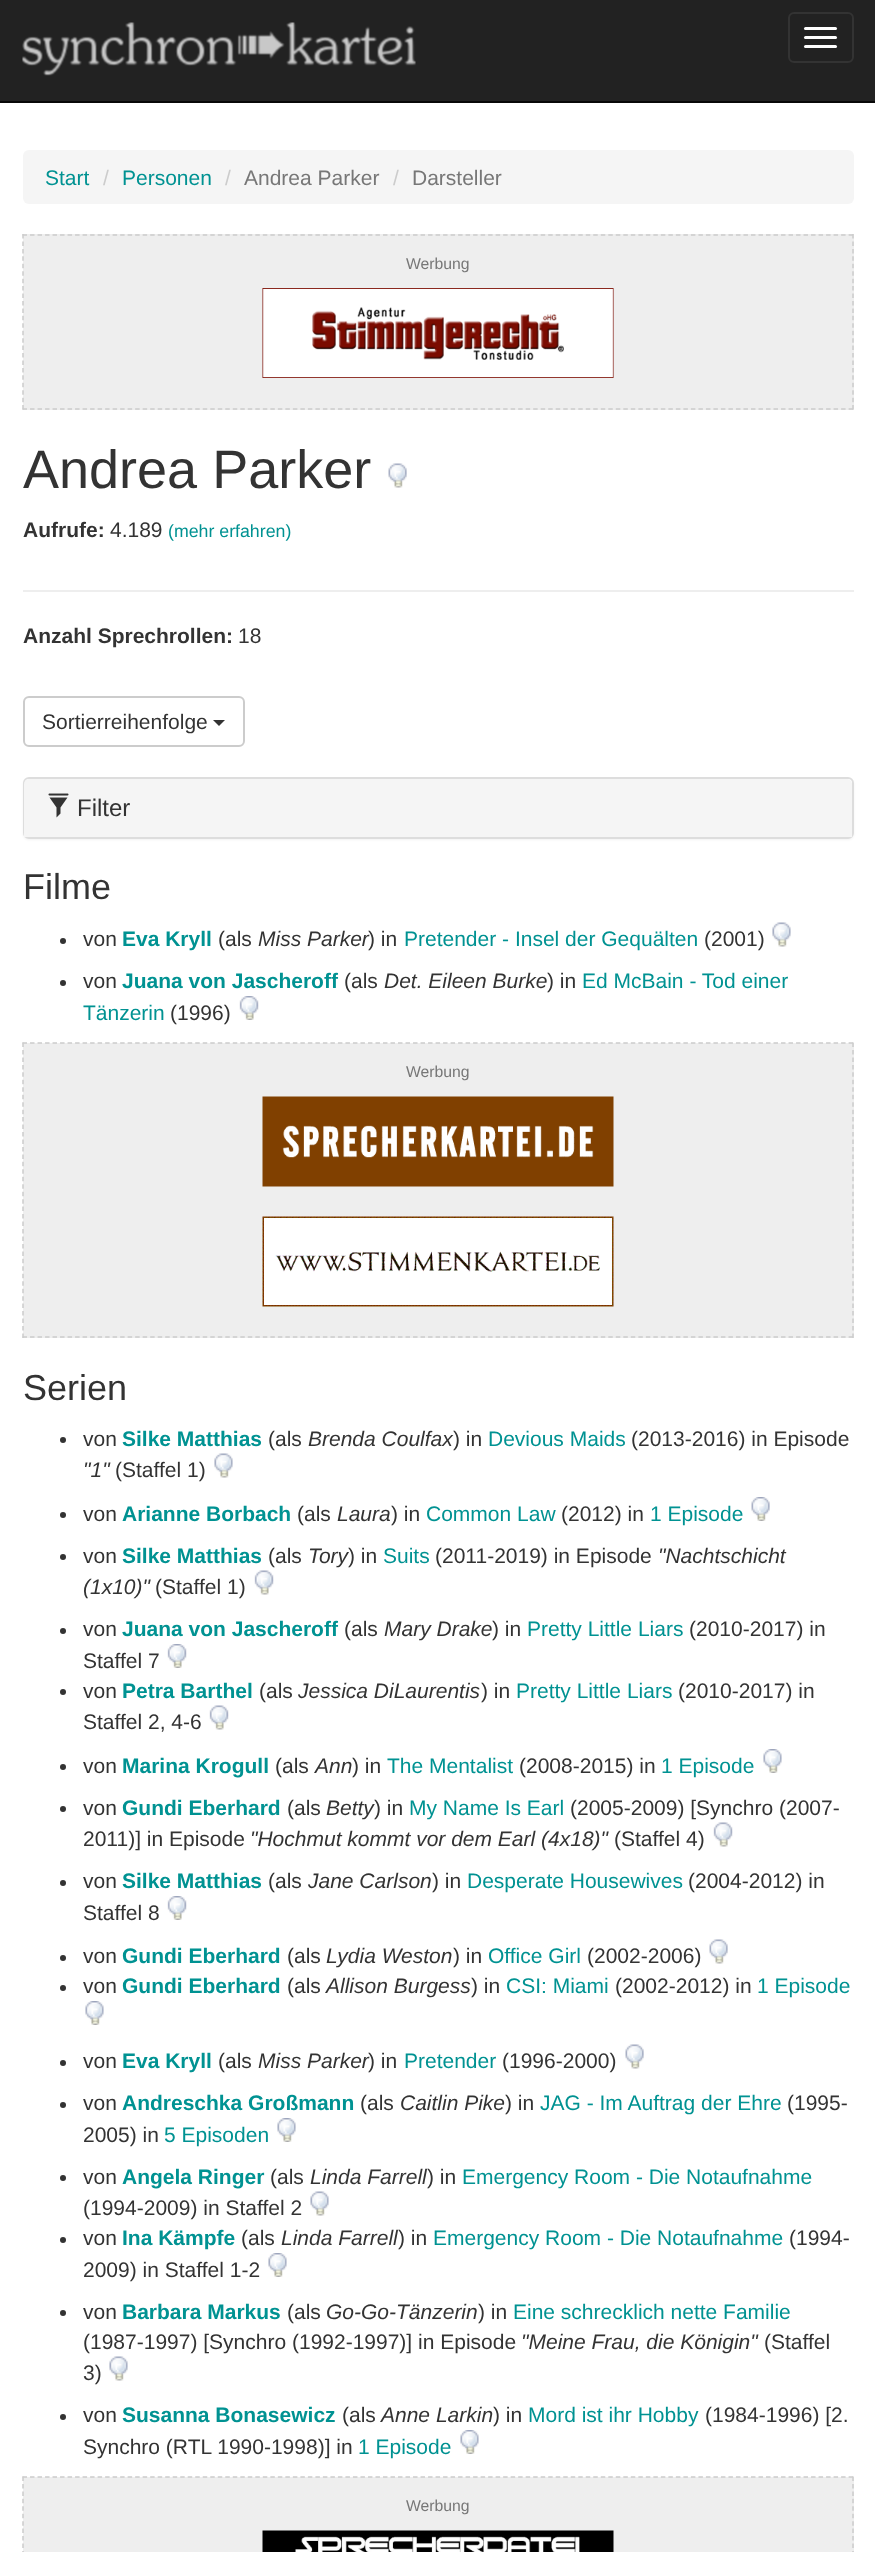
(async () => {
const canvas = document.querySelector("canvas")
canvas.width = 875
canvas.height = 2552
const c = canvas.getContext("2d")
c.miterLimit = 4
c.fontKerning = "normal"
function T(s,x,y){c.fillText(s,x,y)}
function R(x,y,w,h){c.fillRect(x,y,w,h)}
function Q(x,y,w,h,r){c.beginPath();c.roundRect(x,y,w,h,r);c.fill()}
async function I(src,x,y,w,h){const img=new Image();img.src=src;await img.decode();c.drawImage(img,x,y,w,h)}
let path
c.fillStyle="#fff"
R(0,0,875,2552)
c.fillStyle="#222"
R(0,0,875,101)
c.fillStyle="#080808"
R(0,101,875,2)
await I("1.png",22,22,394,54)
c.beginPath()
c.roundRect(789,13,64,49,5)
c.strokeStyle="#333"
c.lineWidth=2
c.stroke()
c.fillStyle="#fff"
Q(804,27,33,3,1.5)
Q(804,36,33,3,1.5)
Q(804,45,33,3,1.5)
c.fillStyle="#f5f5f5"
Q(23,150,831,54,6)
c.font="21px Liberation Sans"
c.fillStyle="#009292"
T("Start",45,185)
c.fillStyle="#ccc"
T("/",103,185)
c.fillStyle="#009292"
T("Personen",122,185)
c.fillStyle="#ccc"
T("/",225,185)
c.fillStyle="#777"
T("Andrea Parker",244,185)
c.fillStyle="#ccc"
T("/",393,185)
c.fillStyle="#777"
T("Darsteller",412,185)
c.fillStyle="#eee"
R(23,234,831,176)
path = new Path2D("M22.5 235h831")
c.strokeStyle="#ccc"
c.lineWidth=1.5
c.setLineDash([4.5,3.01])
c.stroke(path)
path = new Path2D("M853 234v175.5")
c.setLineDash([4.5,2.94])
c.stroke(path)
path = new Path2D("M22.5 409h831")
c.setLineDash([4.5,3.01])
c.stroke(path)
path = new Path2D("M23 234v175.5")
c.setLineDash([4.5,2.94])
c.stroke(path)
c.font="15.75px Liberation Sans"
c.fillStyle="#777"
T("Werbung",406,269)
await I("2.png",262,288,352,90)
c.font="54px Liberation Sans"
c.fillStyle="#333"
T("Andrea Parker",23,488)
await I("3.png",388,463,19,25)
c.font="bold 21px Liberation Sans"
T("Aufrufe:",23,537)
c.font="21px Liberation Sans"
T("4.189",110,537)
c.font="17.75px Liberation Sans"
c.fillStyle="#009292"
T("(mehr erfahren)",168,537)
c.fillStyle="#eee"
R(23,590,831,2)
c.font="bold 21px Liberation Sans"
c.fillStyle="#333"
T("Anzahl Sprechrollen:",23,643)
c.font="21px Liberation Sans"
T("18",238,643)
c.beginPath()
c.roundRect(24,697,220,49,5)
c.lineWidth=2
c.setLineDash([])
c.stroke()
T("Sortierreihenfolge",42,729)
path = new Path2D("M213 720h12l-6 6z")
c.fill(path)
c.fillStyle="#0000000d"
c.filter="blur(1px)"
c.beginPath()
c.roundRect(23,779,831,61,6)
c.fill()
c.filter="none"
c.fillStyle="#fff"
c.beginPath()
c.roundRect(24,778,829,60,5)
c.fill()
c.strokeStyle="#ddd"
c.stroke()
c.fillStyle="#f5f5f5"
c.beginPath()
c.roundRect(24,779,828,58,[5,5,0,0])
c.fill()
await I("4.png",48,793,21,25)
c.font="24px Liberation Sans"
c.fillStyle="#333"
T("Filter",77,816)
c.font="36px Liberation Sans"
T("Filme",23,899)
c.beginPath()
c.arc(63,941,3,0,7)
c.fill()
c.font="21px Liberation Sans"
T("von",83,946)
c.font="bold 21px Liberation Sans"
c.fillStyle="#009292"
T("Eva Kryll",122,946)
c.font="21px Liberation Sans"
c.fillStyle="#333"
T("(als",218,946)
c.font="italic 21px Liberation Sans"
T("Miss Parker",258,946)
c.font="21px Liberation Sans"
T(") in",368,946)
c.fillStyle="#009292"
T("Pretender - Insel der Gequälten",404,946)
c.fillStyle="#333"
T("(2001)",704,946)
await I("5.png",772,922,19,25)
c.beginPath()
c.arc(63,983,3,0,7)
c.fill()
T("von",83,988)
c.font="bold 21px Liberation Sans"
c.fillStyle="#009292"
T("Juana von Jascheroff",122,988)
c.font="21px Liberation Sans"
c.fillStyle="#333"
T("(als",344,988)
c.font="italic 21px Liberation Sans"
T("Det. Eileen Burke",384,988)
c.font="21px Liberation Sans"
T(") in",547,988)
c.fillStyle="#009292"
T("Ed McBain - Tod einer",582,988)
T("Tänzerin",83,1020)
c.fillStyle="#333"
T("(1996)",170,1020)
await I("6.png",239,996,20,24)
c.fillStyle="#eee"
R(23,1043,831,295)
path = new Path2D("M22.5 1043h831")
c.strokeStyle="#ccc"
c.lineWidth=1.5
c.setLineDash([4.5,3.01])
c.stroke(path)
path = new Path2D("M853 1042.5v295.5")
c.setLineDash([4.5,2.96])
c.stroke(path)
path = new Path2D("M22.5 1337h831")
c.setLineDash([4.5,3.01])
c.stroke(path)
path = new Path2D("M23 1042.5v295.5")
c.setLineDash([4.5,2.96])
c.stroke(path)
c.font="15.75px Liberation Sans"
c.fillStyle="#777"
T("Werbung",406,1077)
await I("7.png",262,1096,352,91)
await I("8.png",262,1216,352,91)
c.font="36px Liberation Sans"
c.fillStyle="#333"
T("Serien",23,1400)
c.beginPath()
c.arc(63,1440,3,0,7)
c.fill()
c.font="21px Liberation Sans"
T("von",83,1446)
c.font="bold 21px Liberation Sans"
c.fillStyle="#009292"
T("Silke Matthias",122,1446)
c.font="21px Liberation Sans"
c.fillStyle="#333"
T("(als",268,1446)
c.font="italic 21px Liberation Sans"
T("Brenda Coulfax",308,1446)
c.font="21px Liberation Sans"
T(") in",453,1446)
c.fillStyle="#009292"
T("Devious Maids",488,1446)
c.fillStyle="#333"
T("(2013-2016) in Episode",631,1446)
c.font="italic 21px Liberation Sans"
T("\"1\"",83,1477)
c.font="21px Liberation Sans"
T("(Staffel 1)",115,1477)
await I("5.png",214,1453,19,25)
c.beginPath()
c.arc(63,1515,3,0,7)
c.fill()
T("von",83,1521)
c.font="bold 21px Liberation Sans"
c.fillStyle="#009292"
T("Arianne Borbach",122,1521)
c.font="21px Liberation Sans"
c.fillStyle="#333"
T("(als",297,1521)
c.font="italic 21px Liberation Sans"
T("Laura",337,1521)
c.font="21px Liberation Sans"
T(") in",391,1521)
c.fillStyle="#009292"
T("Common Law",426,1521)
c.fillStyle="#333"
T("(2012) in",561,1521)
c.fillStyle="#009292"
T("1 Episode",650,1521)
await I("9.png",751,1497,19,24)
c.fillStyle="#333"
c.beginPath()
c.arc(63,1557,3,0,7)
c.fill()
T("von",83,1563)
c.font="bold 21px Liberation Sans"
c.fillStyle="#009292"
T("Silke Matthias",122,1563)
c.font="21px Liberation Sans"
c.fillStyle="#333"
T("(als",268,1563)
c.font="italic 21px Liberation Sans"
T("Tory",308,1563)
c.font="21px Liberation Sans"
T(") in",348,1563)
c.fillStyle="#009292"
T("Suits",383,1563)
c.fillStyle="#333"
T("(2011-2019) in Episode",435,1563)
c.font="italic 21px Liberation Sans"
T("\"Nachtschicht",658,1563)
T("(1x10)\"",83,1594)
c.font="21px Liberation Sans"
T("(Staffel 1)",155,1594)
await I("10.png",254,1570,20,25)
c.beginPath()
c.arc(63,1631,3,0,7)
c.fill()
T("von",83,1636)
c.font="bold 21px Liberation Sans"
c.fillStyle="#009292"
T("Juana von Jascheroff",122,1636)
c.font="21px Liberation Sans"
c.fillStyle="#333"
T("(als",344,1636)
c.font="italic 21px Liberation Sans"
T("Mary Drake",384,1636)
c.font="21px Liberation Sans"
T(") in",492,1636)
c.fillStyle="#009292"
T("Pretty Little Liars",527,1636)
c.fillStyle="#333"
T("(2010-2017) in",689,1636)
T("Staffel 7",83,1668)
await I("6.png",167,1644,20,24)
c.beginPath()
c.arc(63,1692,3,0,7)
c.fill()
T("von",83,1698)
c.font="bold 21px Liberation Sans"
c.fillStyle="#009292"
T("Petra Barthel",122,1698)
c.font="21px Liberation Sans"
c.fillStyle="#333"
T("(als",259,1698)
c.font="italic 21px Liberation Sans"
T("Jessica DiLaurentis",298,1698)
c.font="21px Liberation Sans"
T(") in",481,1698)
c.fillStyle="#009292"
T("Pretty Little Liars",516,1698)
c.fillStyle="#333"
T("(2010-2017) in",678,1698)
T("Staffel 2, 4-6",83,1729)
await I("10.png",209,1705,20,25)
c.beginPath()
c.arc(63,1767,3,0,7)
c.fill()
T("von",83,1773)
c.font="bold 21px Liberation Sans"
c.fillStyle="#009292"
T("Marina Krogull",122,1773)
c.font="21px Liberation Sans"
c.fillStyle="#333"
T("(als",275,1773)
c.font="italic 21px Liberation Sans"
T("Ann",315,1773)
c.font="21px Liberation Sans"
T(") in",352,1773)
c.fillStyle="#009292"
T("The Mentalist",387,1773)
c.fillStyle="#333"
T("(2008-2015) in",519,1773)
c.fillStyle="#009292"
T("1 Episode",661,1773)
await I("11.png",763,1749,19,24)
c.fillStyle="#333"
c.beginPath()
c.arc(63,1809,3,0,7)
c.fill()
T("von",83,1815)
c.font="bold 21px Liberation Sans"
c.fillStyle="#009292"
T("Gundi Eberhard",122,1815)
c.font="21px Liberation Sans"
c.fillStyle="#333"
T("(als",287,1815)
c.font="italic 21px Liberation Sans"
T("Betty",326,1815)
c.font="21px Liberation Sans"
T(") in",374,1815)
c.fillStyle="#009292"
T("My Name Is Earl",409,1815)
c.fillStyle="#333"
T("(2005-2009) [Synchro (2007-",570,1815)
T("2011)] in Episode",83,1846)
c.font="italic 21px Liberation Sans"
T("\"Hochmut kommt vor dem Earl (4x18)\"",250,1846)
c.font="21px Liberation Sans"
T("(Staffel 4)",614,1846)
await I("12.png",713,1822,20,25)
c.beginPath()
c.arc(63,1883,3,0,7)
c.fill()
T("von",83,1888)
c.font="bold 21px Liberation Sans"
c.fillStyle="#009292"
T("Silke Matthias",122,1888)
c.font="21px Liberation Sans"
c.fillStyle="#333"
T("(als",268,1888)
c.font="italic 21px Liberation Sans"
T("Jane Carlson",308,1888)
c.font="21px Liberation Sans"
T(") in",432,1888)
c.fillStyle="#009292"
T("Desperate Housewives",467,1888)
c.fillStyle="#333"
T("(2004-2012) in",688,1888)
T("Staffel 8",83,1920)
await I("6.png",167,1896,20,24)
c.beginPath()
c.arc(63,1958,3,0,7)
c.fill()
T("von",83,1963)
c.font="bold 21px Liberation Sans"
c.fillStyle="#009292"
T("Gundi Eberhard",122,1963)
c.font="21px Liberation Sans"
c.fillStyle="#333"
T("(als",287,1963)
c.font="italic 21px Liberation Sans"
T("Lydia Weston",326,1963)
c.font="21px Liberation Sans"
T(") in",453,1963)
c.fillStyle="#009292"
T("Office Girl",488,1963)
c.fillStyle="#333"
T("(2002-2006)",587,1963)
await I("3.png",709,1939,19,25)
c.beginPath()
c.arc(63,1988,3,0,7)
c.fill()
T("von",83,1993)
c.font="bold 21px Liberation Sans"
c.fillStyle="#009292"
T("Gundi Eberhard",122,1993)
c.font="21px Liberation Sans"
c.fillStyle="#333"
T("(als",287,1993)
c.font="italic 21px Liberation Sans"
T("Allison Burgess",326,1993)
c.font="21px Liberation Sans"
T(") in",471,1993)
c.fillStyle="#009292"
T("CSI: Miami",506,1993)
c.fillStyle="#333"
T("(2002-2012) in",615,1993)
c.fillStyle="#009292"
T("1 Episode",757,1993)
await I("11.png",85,2001,19,24)
c.fillStyle="#333"
c.beginPath()
c.arc(63,2063,3,0,7)
c.fill()
T("von",83,2068)
c.font="bold 21px Liberation Sans"
c.fillStyle="#009292"
T("Eva Kryll",122,2068)
c.font="21px Liberation Sans"
c.fillStyle="#333"
T("(als",218,2068)
c.font="italic 21px Liberation Sans"
T("Miss Parker",258,2068)
c.font="21px Liberation Sans"
T(") in",368,2068)
c.fillStyle="#009292"
T("Pretender",404,2068)
c.fillStyle="#333"
T("(1996-2000)",502,2068)
await I("3.png",625,2044,19,25)
c.beginPath()
c.arc(63,2105,3,0,7)
c.fill()
T("von",83,2110)
c.font="bold 21px Liberation Sans"
c.fillStyle="#009292"
T("Andreschka Großmann",122,2110)
c.font="21px Liberation Sans"
c.fillStyle="#333"
T("(als",360,2110)
c.font="italic 21px Liberation Sans"
T("Caitlin Pike",400,2110)
c.font="21px Liberation Sans"
T(") in",505,2110)
c.fillStyle="#009292"
T("JAG - Im Auftrag der Ehre",540,2110)
c.fillStyle="#333"
T("(1995-",787,2110)
T("2005) in",83,2142)
c.fillStyle="#009292"
T("5 Episoden",164,2142)
await I("11.png",277,2118,19,24)
c.fillStyle="#333"
c.beginPath()
c.arc(63,2178,3,0,7)
c.fill()
T("von",83,2184)
c.font="bold 21px Liberation Sans"
c.fillStyle="#009292"
T("Angela Ringer",122,2184)
c.font="21px Liberation Sans"
c.fillStyle="#333"
T("(als",270,2184)
c.font="italic 21px Liberation Sans"
T("Linda Farrell",310,2184)
c.font="21px Liberation Sans"
T(") in",427,2184)
c.fillStyle="#009292"
T("Emergency Room - Die Notaufnahme",462,2184)
c.fillStyle="#333"
T("(1994-2009) in Staffel 2",83,2215)
await I("5.png",310,2191,19,25)
c.beginPath()
c.arc(63,2240,3,0,7)
c.fill()
T("von",83,2245)
c.font="bold 21px Liberation Sans"
c.fillStyle="#009292"
T("Ina Kämpfe",122,2245)
c.font="21px Liberation Sans"
c.fillStyle="#333"
T("(als",241,2245)
c.font="italic 21px Liberation Sans"
T("Linda Farrell",281,2245)
c.font="21px Liberation Sans"
T(") in",398,2245)
c.fillStyle="#009292"
T("Emergency Room - Die Notaufnahme",433,2245)
c.fillStyle="#333"
T("(1994-",789,2245)
T("2009) in Staffel 1-2",83,2277)
await I("11.png",268,2253,19,24)
c.beginPath()
c.arc(63,2313,3,0,7)
c.fill()
T("von",83,2319)
c.font="bold 21px Liberation Sans"
c.fillStyle="#009292"
T("Barbara Markus",122,2319)
c.font="21px Liberation Sans"
c.fillStyle="#333"
T("(als",287,2319)
c.font="italic 21px Liberation Sans"
T("Go-Go-Tänzerin",326,2319)
c.font="21px Liberation Sans"
T(") in",478,2319)
c.fillStyle="#009292"
T("Eine schrecklich nette Familie",513,2319)
c.fillStyle="#333"
T("(1987-1997) [Synchro (1992-1997)] in Episode",83,2349)
c.font="italic 21px Liberation Sans"
T("\"Meine Frau, die Königin\"",521,2349)
c.font="21px Liberation Sans"
T("(Staffel",764,2349)
T("3)",83,2380)
await I("5.png",109,2356,19,25)
c.beginPath()
c.arc(63,2417,3,0,7)
c.fill()
T("von",83,2422)
c.font="bold 21px Liberation Sans"
c.fillStyle="#009292"
T("Susanna Bonasewicz",122,2422)
c.font="21px Liberation Sans"
c.fillStyle="#333"
T("(als",342,2422)
c.font="italic 21px Liberation Sans"
T("Anne Larkin",381,2422)
c.font="21px Liberation Sans"
T(") in",493,2422)
c.fillStyle="#009292"
T("Mord ist ihr Hobby",528,2422)
c.fillStyle="#333"
T("(1984-1996) [2.",705,2422)
T("Synchro (RTL 1990-1998)] in",83,2454)
c.fillStyle="#009292"
T("1 Episode",358,2454)
await I("11.png",460,2430,19,24)
c.fillStyle="#eee"
R(23,2477,831,75)
path = new Path2D("M22.5 2477h831")
c.setLineDash([4.5,3.01])
c.stroke(path)
path = new Path2D("M853 2476.5v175.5")
c.setLineDash([4.5,2.94])
c.stroke(path)
path = new Path2D("M23 2476.5v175.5")
c.stroke(path)
c.font="15.75px Liberation Sans"
c.fillStyle="#777"
T("Werbung",406,2511)
await I("13.png",262,2530,352,22)
})()
